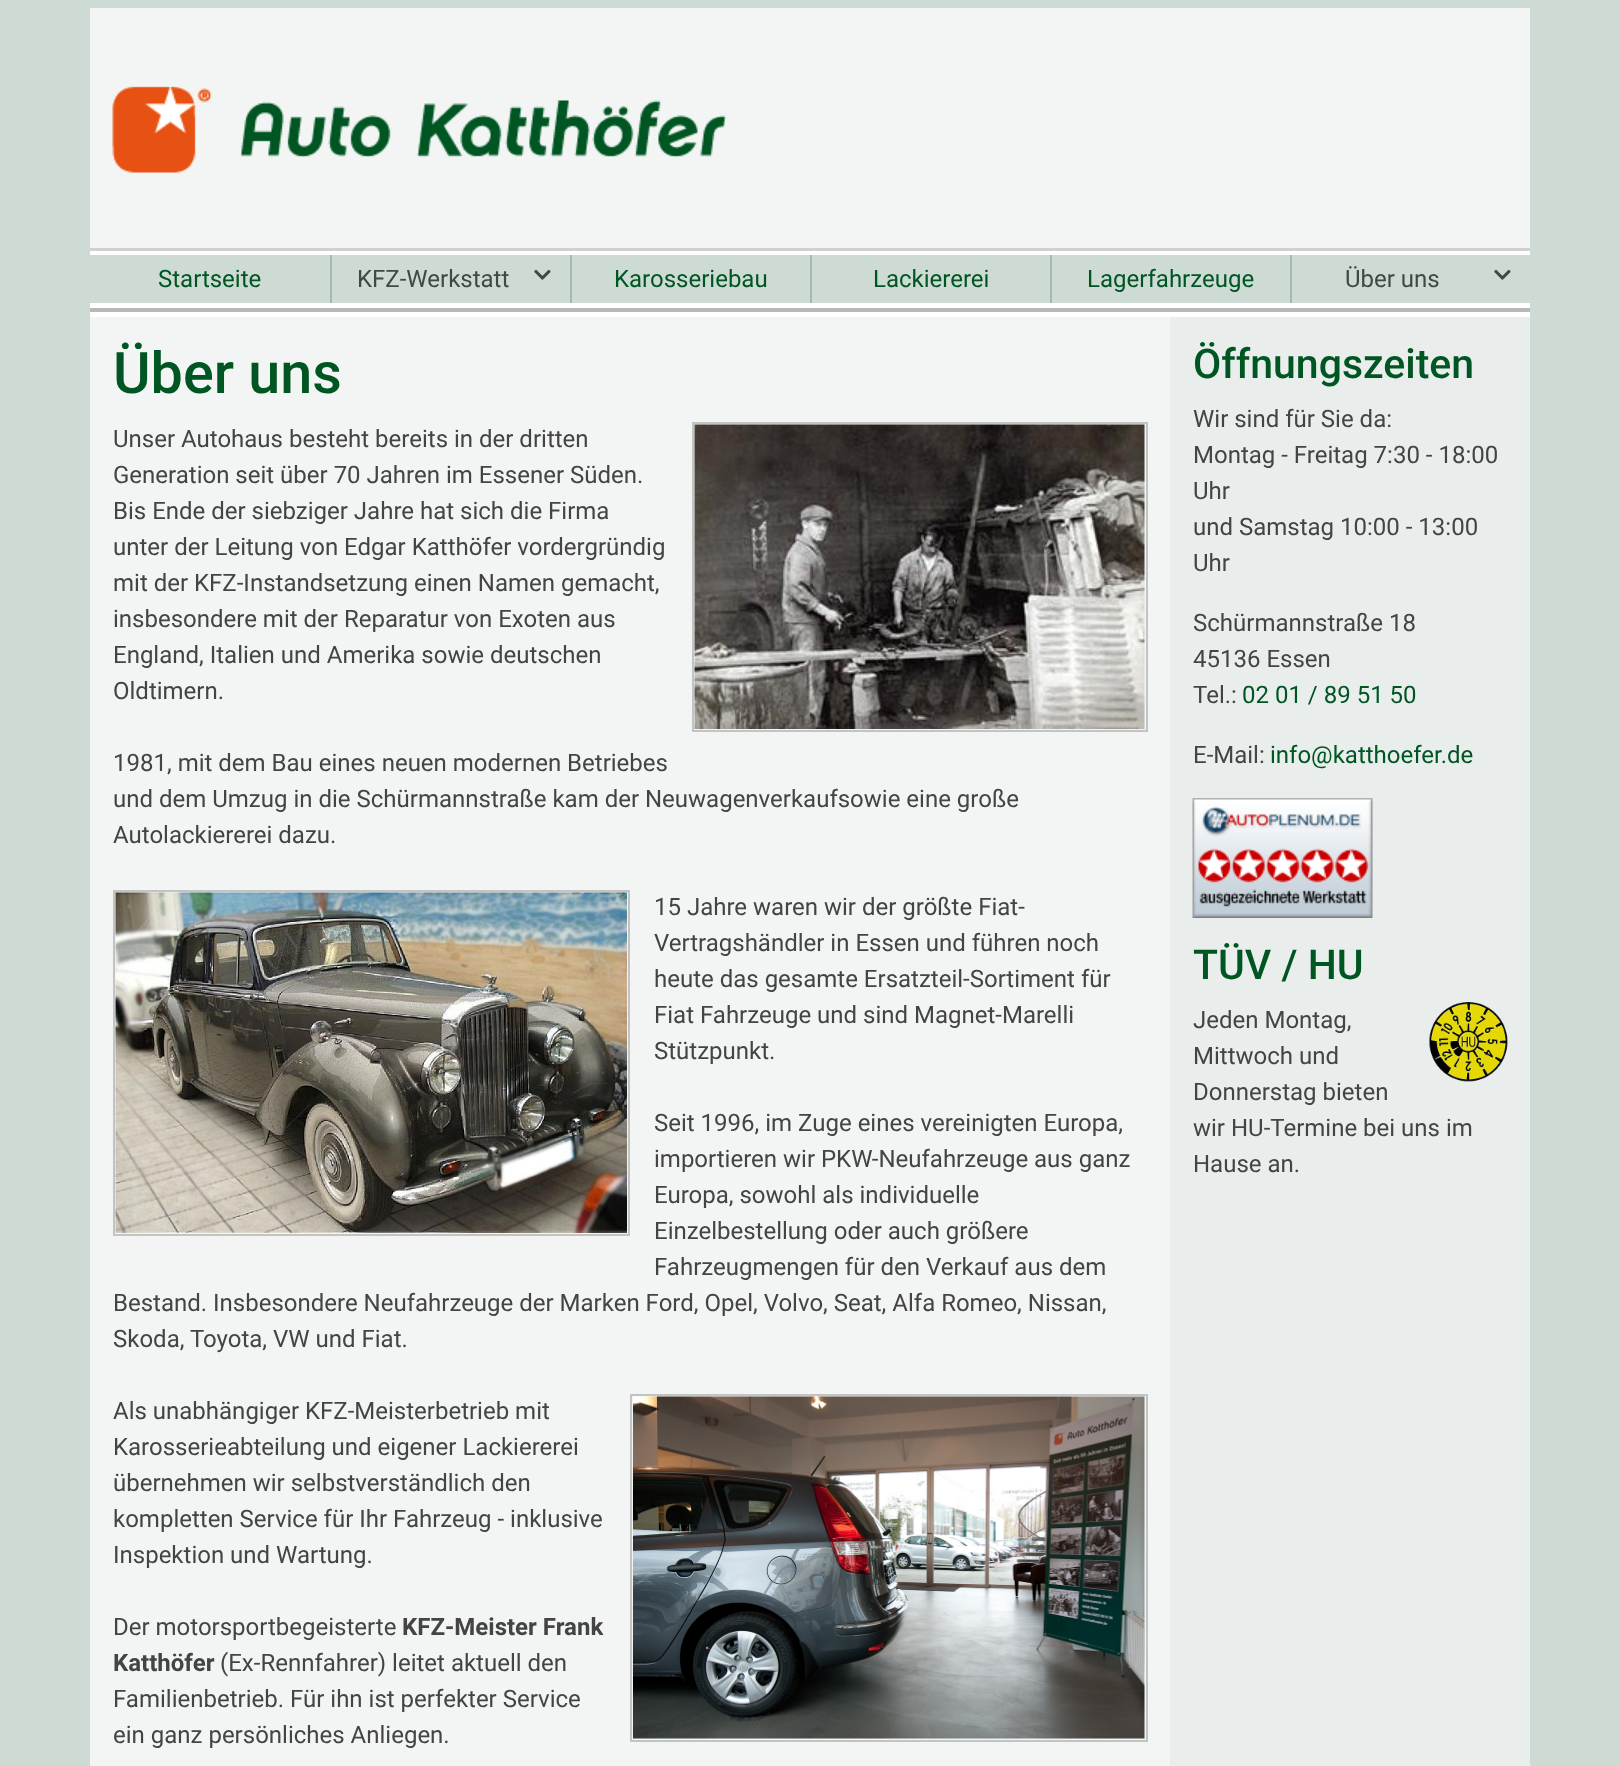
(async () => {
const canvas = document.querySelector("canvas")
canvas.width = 1619
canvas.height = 1766
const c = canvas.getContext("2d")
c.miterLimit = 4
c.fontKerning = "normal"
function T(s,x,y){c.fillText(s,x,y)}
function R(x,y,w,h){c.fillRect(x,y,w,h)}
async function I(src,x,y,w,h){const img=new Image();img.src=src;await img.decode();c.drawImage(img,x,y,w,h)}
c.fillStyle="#cedbd4"
R(0,0,1619,1766)
c.fillStyle="#f2f5f4"
R(90,8,1440,240)
await I("1.png",112,86,614,87)
c.fillStyle="#cfd0cf"
R(90,248,1440,3)
c.fillStyle="#fff"
R(90,251,1440,4)
c.font="24px Roboto"
c.fillStyle="#005622"
T("Startseite",158,287)
c.fillStyle="#a2bbad"
R(330,255,2,48)
c.fillStyle="#3e4b43"
T("KFZ-Werkstatt",357,287)
await I("2.png",534,269,17,11)
c.fillStyle="#a2bbad"
R(570,255,2,48)
c.fillStyle="#005622"
T("Karosseriebau",614,287)
c.fillStyle="#a2bbad"
R(810,255,2,48)
c.fillStyle="#005622"
T("Lackiererei",873,287)
c.fillStyle="#a2bbad"
R(1050,255,2,48)
c.fillStyle="#005622"
T("Lagerfahrzeuge",1087,287)
c.fillStyle="#a2bbad"
R(1290,255,2,48)
c.fillStyle="#3e4b43"
T("Über uns",1345,287)
await I("2.png",1494,269,17,11)
c.fillStyle="#f2f5f4"
R(90,317,1080,1449)
c.fillStyle="#b7b9b7"
R(90,308,1440,4)
c.fillStyle="#fff"
R(90,303,1440,5)
R(90,312,1440,5)
c.font="500 57.5px Roboto"
c.fillStyle="#005622"
T("Über uns",113,393)
c.font="24px Roboto"
c.fillStyle="#444"
T("Unser Autohaus besteht bereits in der dritten",113,447)
c.strokeStyle="#c2c4c3"
c.lineWidth=2
c.strokeRect(693,423,454,308)
await I("3.png",694,424,451,305)
T("Generation seit über 70 Jahren im Essener Süden.",113,483)
T("Bis Ende der siebziger Jahre hat sich die Firma",113,519)
T("unter der Leitung von Edgar Katthöfer vordergründig",113,555)
T("mit der KFZ-Instandsetzung einen Namen gemacht,",113,591)
T("insbesondere mit der Reparatur von Exoten aus",113,627)
T("England, Italien und Amerika sowie deutschen",113,663)
T("Oldtimern.",113,699)
T("1981, mit dem Bau eines neuen modernen Betriebes",113,771)
T("und dem Umzug in die Schürmannstraße kam der Neuwagenverkaufsowie eine große",113,807)
T("Autolackiererei dazu.",113,843)
c.strokeRect(114,891,515,344)
await I("4.png",115,892,512,341)
T("15 Jahre waren wir der größte Fiat-",654,915)
T("Vertragshändler in Essen und führen noch",654,951)
T("heute das gesamte Ersatzteil-Sortiment für",654,987)
T("Fiat Fahrzeuge und sind Magnet-Marelli",654,1023)
T("Stützpunkt.",654,1059)
T("Seit 1996, im Zuge eines vereinigten Europa,",654,1131)
T("importieren wir PKW-Neufahrzeuge aus ganz",654,1167)
T("Europa, sowohl als individuelle",654,1203)
T("Einzelbestellung oder auch größere",654,1239)
T("Fahrzeugmengen für den Verkauf aus dem",654,1275)
T("Bestand. Insbesondere Neufahrzeuge der Marken Ford, Opel, Volvo, Seat, Alfa Romeo, Nissan,",113,1311)
T("Skoda, Toyota, VW und Fiat.",113,1347)
T("Als unabhängiger KFZ-Meisterbetrieb mit",113,1419)
c.strokeRect(631,1395,516,346)
await I("5.png",633,1396,512,343)
T("Karosserieabteilung und eigener Lackiererei",113,1455)
T("übernehmen wir selbstverständlich den",113,1491)
T("kompletten Service für Ihr Fahrzeug - inklusive",113,1527)
T("Inspektion und Wartung.",113,1563)
T("Der motorsportbegeisterte",113,1635)
c.font="bold 24px Roboto"
T("KFZ-Meister Frank",402,1635)
T("Katthöfer",113,1671)
c.font="24px Roboto"
T("(Ex-Rennfahrer) leitet aktuell den",220,1671)
T("Familienbetrieb. Für ihn ist perfekter Service",113,1707)
T("ein ganz persönliches Anliegen.",113,1743)
c.fillStyle="#e9eeed"
R(1170,317,360,1449)
c.font="500 41px Roboto"
c.fillStyle="#005622"
T("Öffnungszeiten",1193,378)
c.font="24px Roboto"
c.fillStyle="#444"
T("Wir sind für Sie da:",1193,427)
T("Montag - Freitag 7:30 - 18:00",1193,463)
T("Uhr",1193,499)
T("und Samstag 10:00 - 13:00",1193,535)
T("Uhr",1193,571)
T("Schürmannstraße 18",1193,631)
T("45136 Essen",1193,667)
T("Tel.:",1193,703)
c.fillStyle="#005622"
T("02 01 / 89 51 50",1242,703)
c.fillStyle="#444"
T("E-Mail:",1193,763)
c.fillStyle="#005622"
T("info@katthoefer.de",1270,763)
await I("6.png",1192,798,181,120)
c.font="500 41px Roboto"
T("TÜV / HU",1193,979)
c.font="24px Roboto"
c.fillStyle="#444"
T("Jeden Montag,",1193,1028)
await I("7.png",1429,1002,79,80)
T("Mittwoch und",1193,1064)
T("Donnerstag bieten",1193,1100)
T("wir HU-Termine bei uns im",1193,1136)
T("Hause an.",1193,1172)
})()
